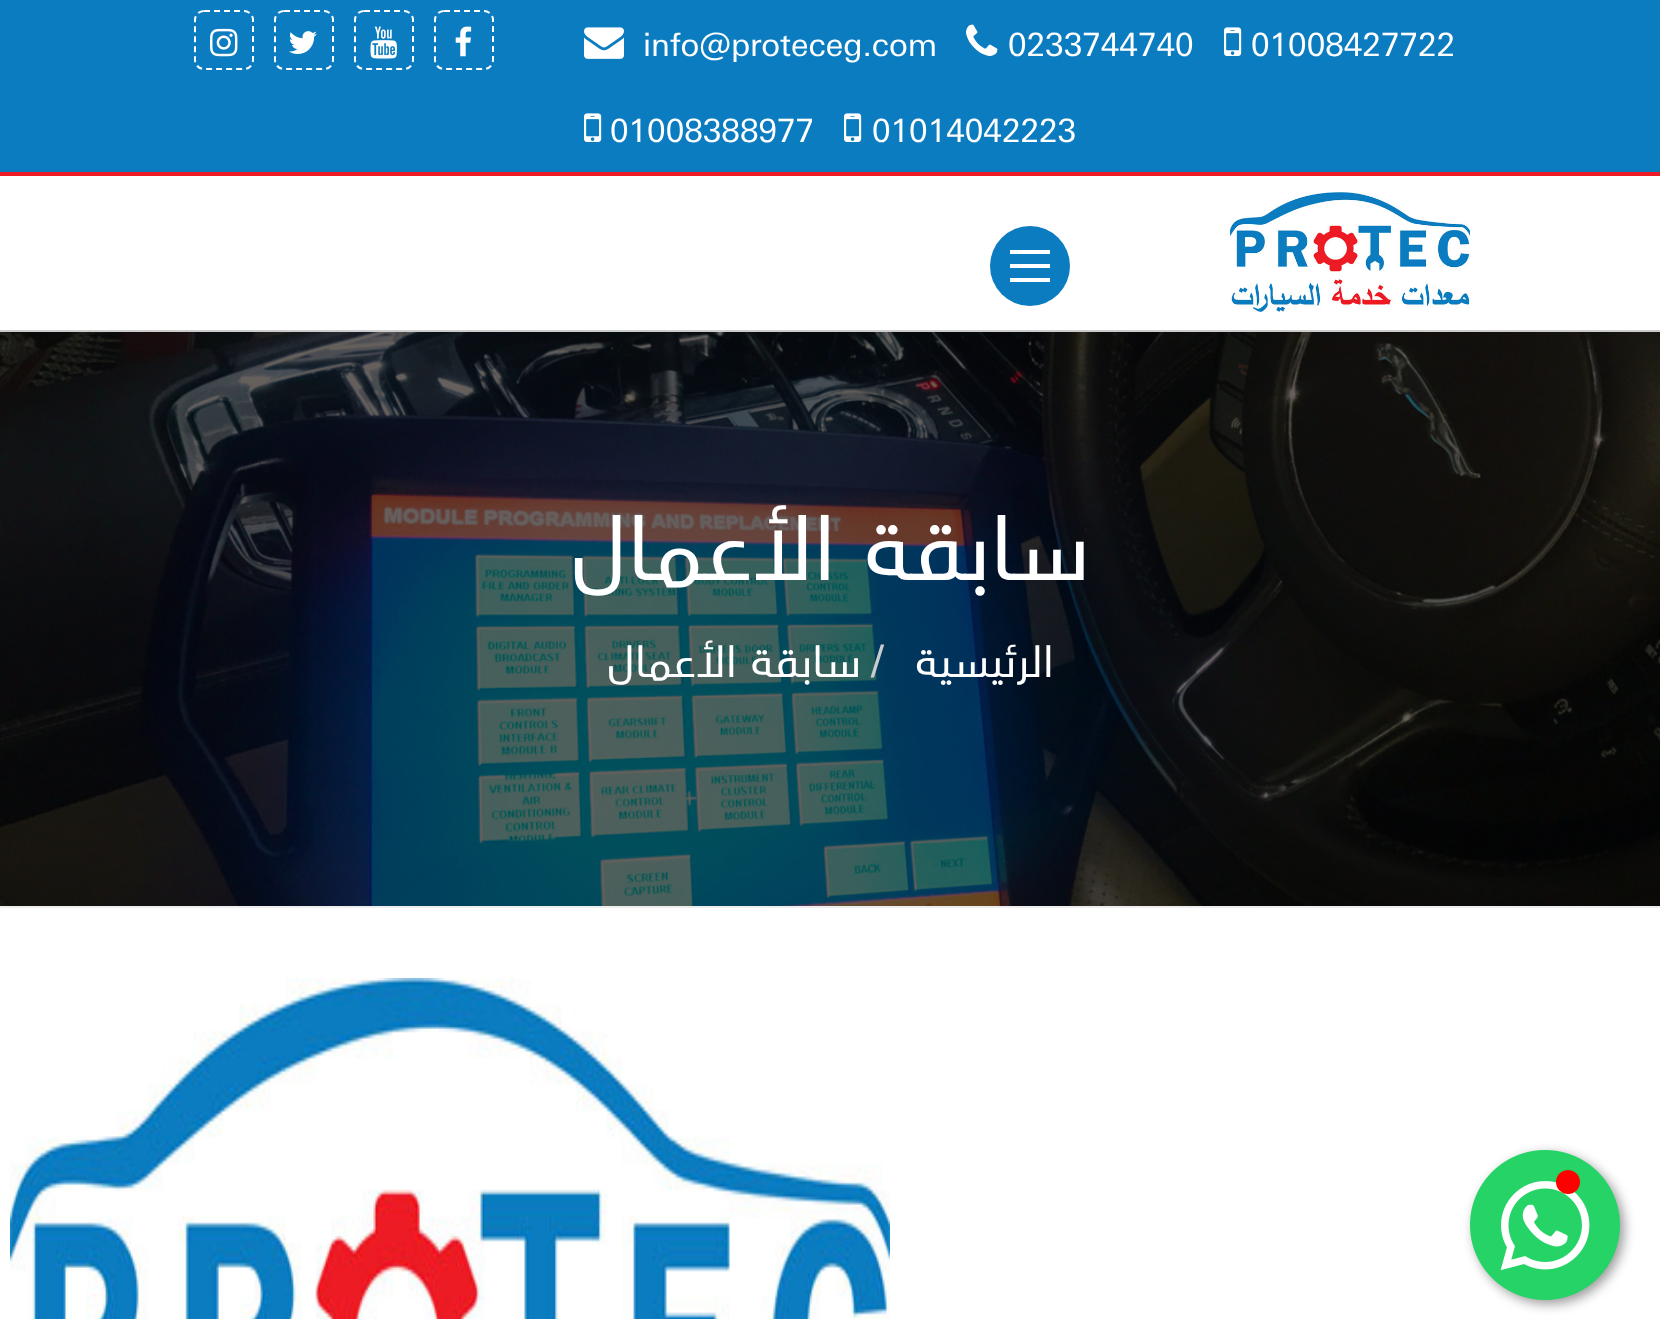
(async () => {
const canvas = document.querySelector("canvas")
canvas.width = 1660
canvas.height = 1319
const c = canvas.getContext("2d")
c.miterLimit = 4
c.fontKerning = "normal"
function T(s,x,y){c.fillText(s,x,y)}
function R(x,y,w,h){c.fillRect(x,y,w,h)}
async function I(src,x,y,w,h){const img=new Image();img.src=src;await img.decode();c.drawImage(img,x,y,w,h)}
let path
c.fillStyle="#fff"
R(0,0,1660,1319)
c.fillStyle="#0b7cc0"
R(0,0,1660,172)
c.fillStyle="#ed1b24"
R(0,172,1660,4)
path = new Path2D("M204 11h40c5 0 9 4 9 9v40c0 5-4 9-9 9h-40c-5 0-9-4-9-9v-40c0-5 4-9 9-9z")
c.strokeStyle="#fff"
c.lineWidth=2
c.setLineDash([6,4])
c.stroke(path)
await I("1.png",210,28,28,29)
path = new Path2D("M284 11h40c5 0 9 4 9 9v40c0 5-4 9-9 9h-40c-5 0-9-4-9-9v-40c0-5 4-9 9-9z")
c.stroke(path)
await I("2.png",289,31,28,23)
path = new Path2D("M364 11h40c5 0 9 4 9 9v40c0 5-4 9-9 9h-40c-5 0-9-4-9-9v-40c0-5 4-9 9-9z")
c.stroke(path)
await I("3.png",370,26,27,33)
path = new Path2D("M444 11h40c5 0 9 4 9 9v40c0 5-4 9-9 9h-40c-5 0-9-4-9-9v-40c0-5 4-9 9-9z")
c.stroke(path)
await I("4.png",455,26,17,31)
await I("5.png",584,27,40,32)
c.font="32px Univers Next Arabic"
c.fillStyle="#fff"
T("info@proteceg.com",643,56)
await I("6.png",966,24,32,32)
T("0233744740",1008,56)
await I("7.png",1224,27,18,29)
T("01008427722",1251,56)
await I("7.png",584,113,18,29)
T("01008388977",610,142)
await I("7.png",844,113,18,29)
T("01014042223",872,142)
c.fillStyle="#ccc"
R(0,330,1660,2)
c.fillStyle="#0b7cc0"
c.beginPath()
c.arc(1030,266,40,0,7)
c.fill()
c.fillStyle="#fff"
R(1010,250,40,4)
R(1010,264,40,4)
R(1010,278,40,4)
await I("8.png",1230,192,240,121)
await I("9.png",0,332,1660,574)
c.fillStyle="#eee"
R(0,906,1660,2)
c.direction="rtl"
c.font="90px Univers Next Arabic"
c.fillStyle="#fff"
T("سابقة الأعمال",1090,580)
c.font="44px Univers Next Arabic"
T("سابقة الأعمال",861,677)
c.direction="ltr"
c.fillStyle="#ccc"
T("/",871,677)
c.direction="rtl"
c.fillStyle="#fff"
T("الرئيسية",1054,677)
await I("10.png",10,978,880,341)
c.fillStyle="#00000066"
c.filter="blur(6px)"
c.beginPath()
c.roundRect(1474,1154,150,150,75)
c.fill()
c.filter="none"
await I("11.png",1470,1150,150,150)
c.fillStyle="#f00"
c.beginPath()
c.arc(1568,1182,12,0,7)
c.fill()
})()
